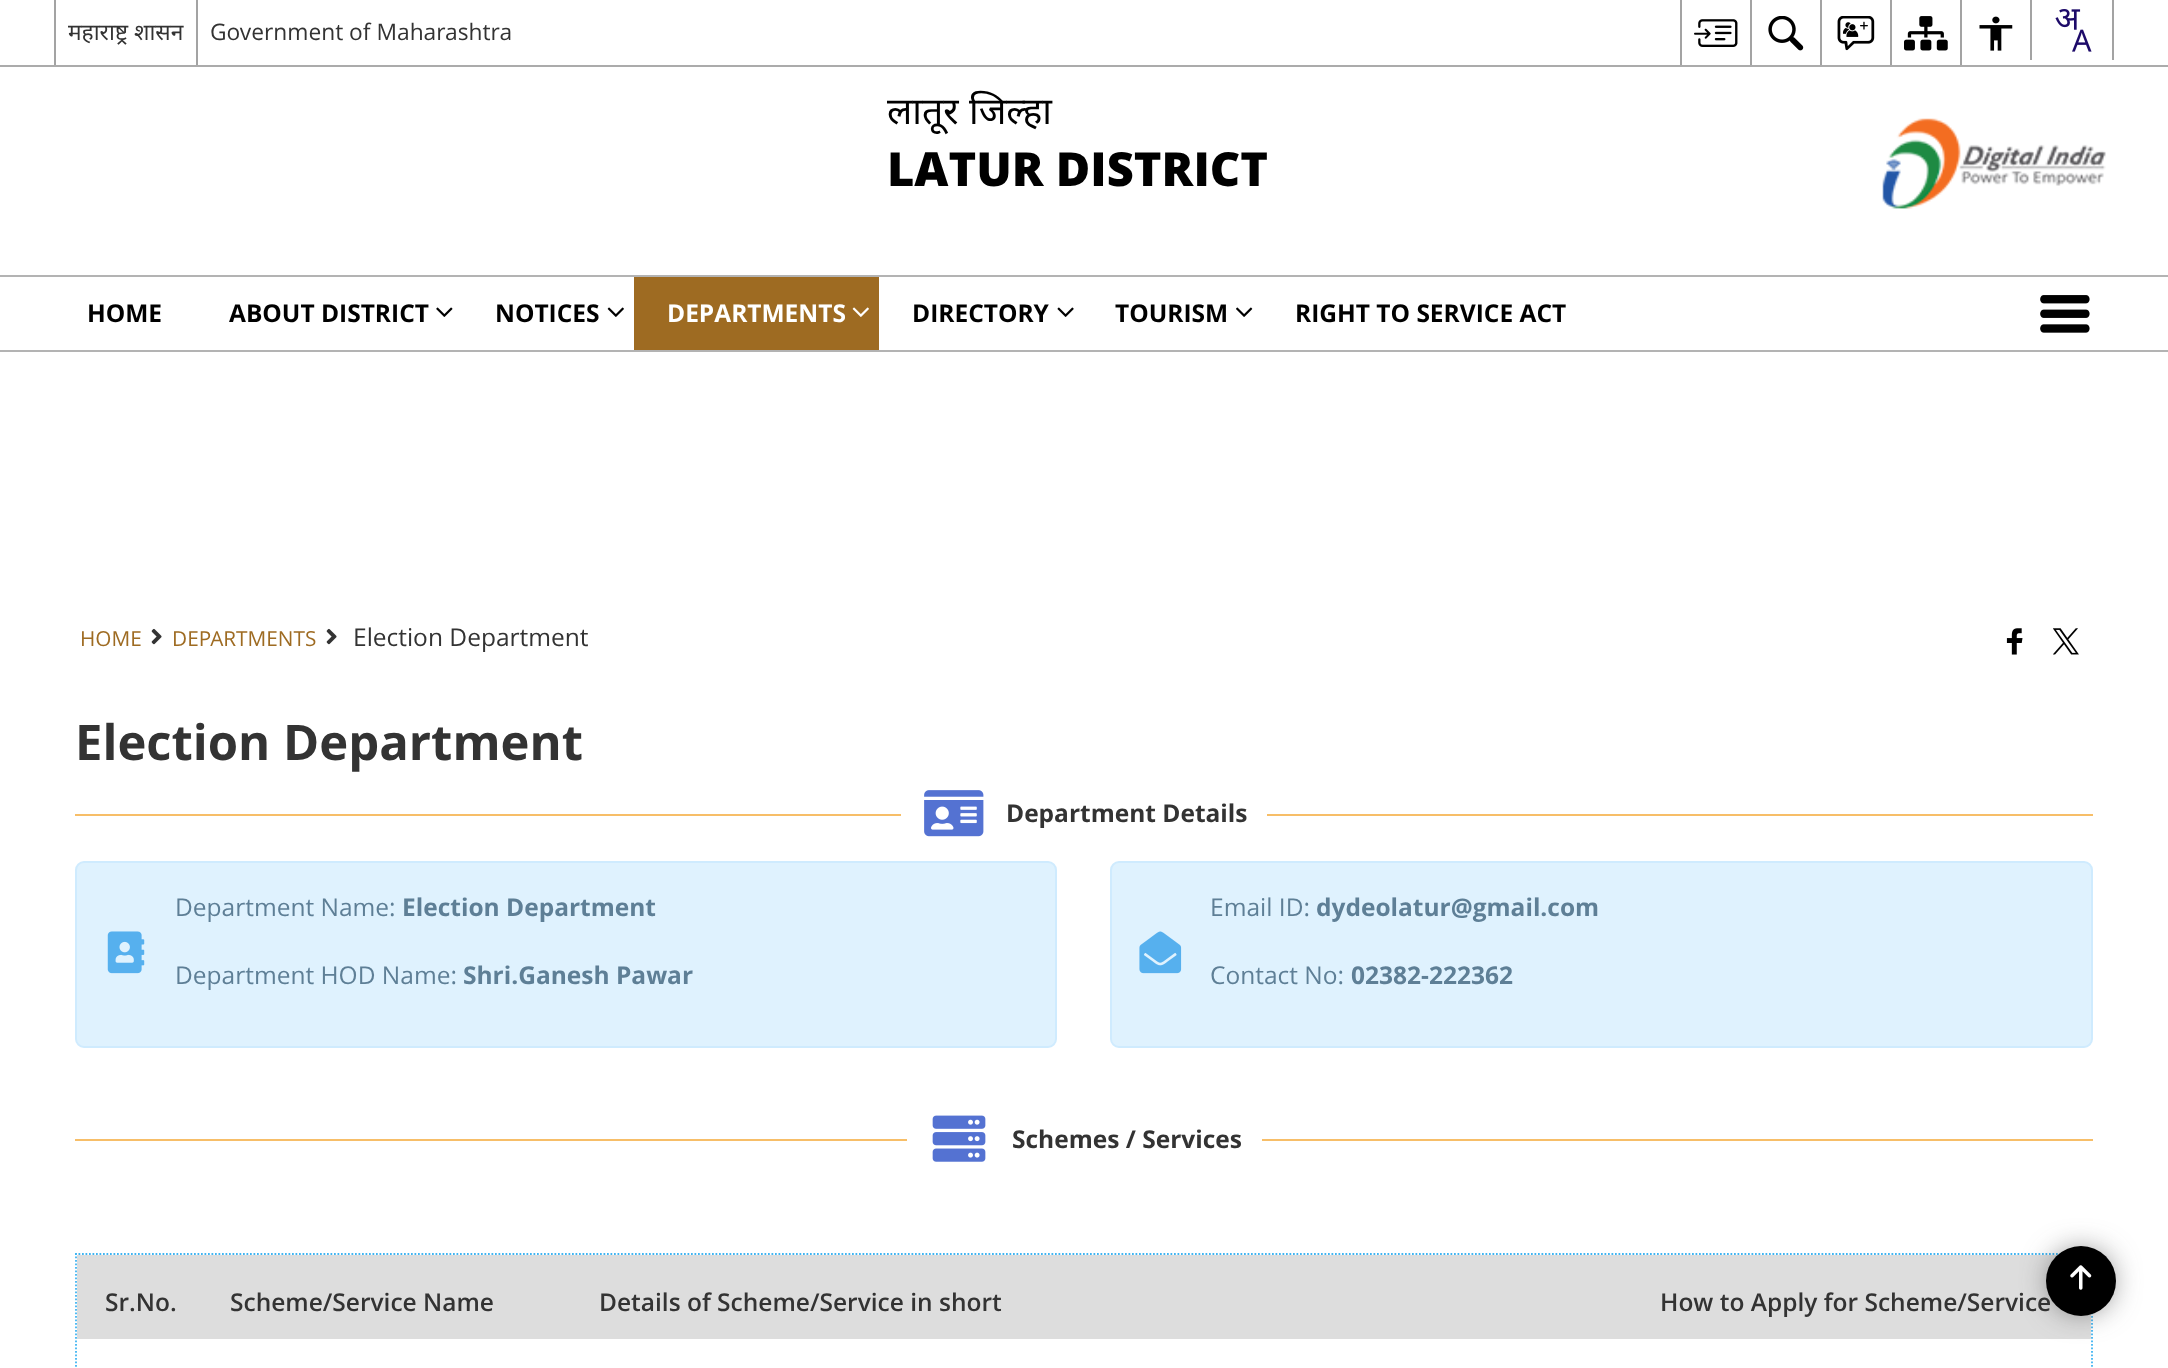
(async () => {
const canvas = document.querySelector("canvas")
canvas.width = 2168
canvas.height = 1368
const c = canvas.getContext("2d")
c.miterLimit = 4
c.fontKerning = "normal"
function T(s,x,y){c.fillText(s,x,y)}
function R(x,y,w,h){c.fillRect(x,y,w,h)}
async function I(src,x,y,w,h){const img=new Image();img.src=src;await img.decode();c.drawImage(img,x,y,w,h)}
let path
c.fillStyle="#fff"
R(0,0,2168,1368)
c.fillStyle="#ababab"
R(0,65,2168,2)
c.fillStyle="#a3a3a3"
R(54,0,2,65)
c.font="22.75px Noto Sans"
c.fillStyle="#333"
T("महाराष्ट्र शासन",68,40)
c.fillStyle="#a3a3a3"
R(196,0,2,65)
c.font="22.75px Open Sans"
c.fillStyle="#333"
T("Government of Maharashtra",210,40)
c.fillStyle="#a3a3a3"
R(1680,0,2,65)
await I("1.png",1694,19,44,28)
R(1750,0,2,65)
await I("2.png",1768,16,36,35)
R(1820,0,2,65)
await I("3.png",1837,16,38,35)
R(1890,0,2,65)
await I("4.png",1904,16,44,35)
R(1960,0,2,65)
await I("5.png",1979,16,34,35)
R(2112,0,2,60)
R(2030,0,2,60)
await I("6.png",2055,9,37,43)
c.wordSpacing="1px"
c.font="37.25px Noto Sans"
c.fillStyle="#000"
T("लातूर जिल्हा",887,124)
c.wordSpacing="0px"
c.font="800 47px Open Sans"
T("LATUR DISTRICT",887,186)
await I("7.png",1882,118,224,91)
c.fillStyle="#b3b3b3"
R(0,275,2168,2)
R(0,350,2168,2)
c.font="bold 24.5px Open Sans"
c.fillStyle="#000"
T("HOME",87,322)
T("ABOUT DISTRICT",229,322)
await I("8.png",436,307,17,10)
T("NOTICES",495,322)
await I("9.png",607,307,17,10)
c.fillStyle="#9e6b22"
R(634,277,245,73)
c.fillStyle="#fff"
T("DEPARTMENTS",667,322)
await I("10.png",852,307,17,10)
c.fillStyle="#000"
T("DIRECTORY",912,322)
await I("11.png",1057,307,17,10)
T("TOURISM",1115,322)
await I("12.png",1236,307,17,10)
T("RIGHT TO SERVICE ACT",1295,322)
await I("13.png",2040,295,50,38)
c.font="20.75px Open Sans"
c.fillStyle="#9e6b22"
T("HOME",80,646)
await I("14.png",151,628,11,17)
T("DEPARTMENTS",172,646)
await I("14.png",326,628,11,17)
c.font="24.5px Open Sans"
c.fillStyle="#333"
T("Election Department",353,646)
await I("15.png",2006,628,17,27)
await I("16.png",2053,628,26,27)
c.font="bold 49px Open Sans"
T("Election Department",75,760)
c.fillStyle="#f7be68"
R(75,814,826,2)
await I("17.png",924,790,60,47)
c.font="bold 24.5px Open Sans"
c.fillStyle="#333"
T("Department Details",1006,822)
c.fillStyle="#f7be68"
R(1267,814,826,2)
c.fillStyle="#dff2fe"
c.beginPath()
c.roundRect(76,862,980,185,8)
c.fill()
c.strokeStyle="#cfebfe"
c.lineWidth=2
c.stroke()
c.font="24.5px Open Sans"
c.fillStyle="#5e7f96"
T("Department Name:",175,916)
c.font="bold 24.5px Open Sans"
T("Election Department",402,916)
await I("18.png",107,931,38,43)
c.font="24.5px Open Sans"
T("Department HOD Name:",175,984)
c.font="bold 24.5px Open Sans"
T("Shri.Ganesh Pawar",463,984)
c.fillStyle="#dff2fe"
c.beginPath()
c.roundRect(1111,862,981,185,8)
c.fill()
c.stroke()
c.font="24.5px Open Sans"
c.fillStyle="#5e7f96"
T("Email ID:",1210,916)
c.font="bold 24.5px Open Sans"
T("dydeolatur@gmail.com",1316,916)
await I("19.png",1139,931,43,43)
c.font="24.5px Open Sans"
T("Contact No:",1210,984)
c.font="bold 24.5px Open Sans"
T("02382-222362",1351,984)
c.fillStyle="#f7be68"
R(75,1139,832,2)
await I("20.png",932,1115,54,47)
c.fillStyle="#333"
T("Schemes / Services",1012,1148)
c.fillStyle="#f7be68"
R(1262,1139,831,2)
path = new Path2D("M75 1254h2018")
c.strokeStyle="#3fb4f2"
c.lineWidth=1.8
c.setLineDash([1.75,1.75])
c.stroke(path)
path = new Path2D("M2092 1253v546")
c.stroke(path)
path = new Path2D("M76 1253v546")
c.stroke(path)
c.fillStyle="#ddd"
R(77,1255,2014,84)
c.font="600 24.5px Open Sans"
c.fillStyle="#333"
T("Sr.No.",105,1311)
T("Scheme/Service Name",230,1311)
T("Details of Scheme/Service in short",599,1311)
T("How to Apply for Scheme/Service",1660,1311)
c.fillStyle="#3c3c3c"
c.filter="blur(16.5px)"
c.beginPath()
c.roundRect(2055,1255,52,52,26)
c.fill()
c.filter="none"
c.fillStyle="#000"
c.beginPath()
c.arc(2081,1281,35,0,7)
c.fill()
await I("21.png",2070,1265,22,25)
})()
